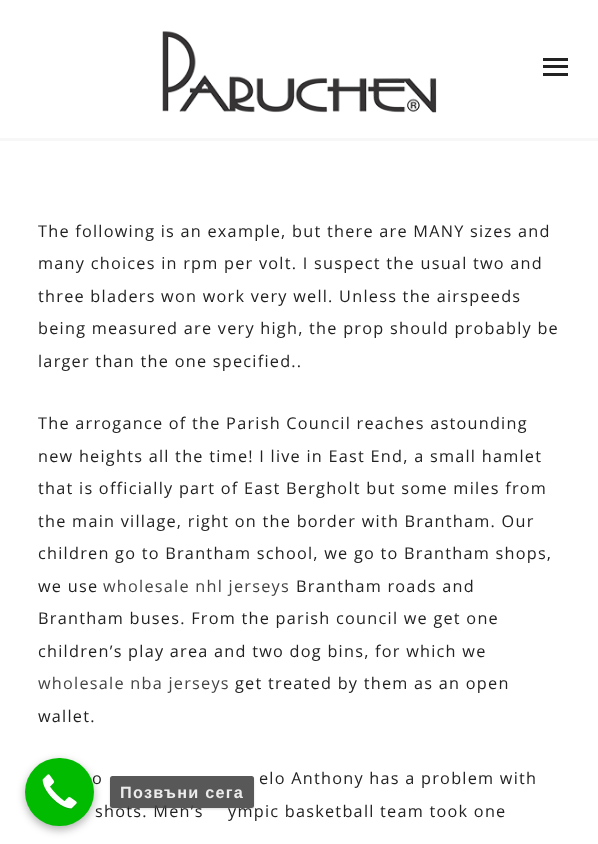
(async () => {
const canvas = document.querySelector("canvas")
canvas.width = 598
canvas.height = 844
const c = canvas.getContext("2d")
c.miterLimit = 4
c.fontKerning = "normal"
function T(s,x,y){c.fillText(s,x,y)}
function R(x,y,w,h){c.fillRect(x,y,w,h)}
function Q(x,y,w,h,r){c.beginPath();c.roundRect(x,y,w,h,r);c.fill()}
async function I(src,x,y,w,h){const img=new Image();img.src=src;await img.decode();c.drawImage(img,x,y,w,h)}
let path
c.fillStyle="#fff"
R(0,0,598,844)
c.fillStyle="#f7f7f7"
R(0,138,598,3)
await I("1.png",162,31,275,82)
c.fillStyle="#222"
R(543,65,25,3)
R(543,58,25,3)
R(543,73,25,3)
c.letterSpacing="1.25px"
c.font="16.25px Open Sans"
T("The following is an example, but there are MANY sizes and",38,237)
T("many choices in rpm per volt. I suspect the usual two and",38,269)
T("three bladers won work very well. Unless the airspeeds",38,302)
T("being measured are very high, the prop should probably be",38,334)
T("larger than the one specified..",38,367)
T("The arrogance of the Parish Council reaches astounding",38,429)
T("new heights all the time! I live in East End, a small hamlet",38,462)
T("that is officially part of East Bergholt but some miles from",38,494)
T("the main village, right on the border with Brantham. Our",38,527)
T("children go to Brantham school, we go to Brantham shops,",38,559)
T("we use",38,592)
c.fillStyle="#444"
T("wholesale nhl jerseys",103,592)
c.fillStyle="#222"
T("Brantham roads and",296,592)
T("Brantham buses. From the parish council we get one",38,624)
T("children’s play area and two dog bins, for which we",38,657)
c.fillStyle="#444"
T("wholesale nba jerseys",38,689)
c.fillStyle="#222"
T("get treated by them as an open",235,689)
T("wallet.",38,722)
T("o",92,784)
T("elo Anthony has a problem with",259,784)
T("shots. Men’s",95,817)
T("ympic basketball team took one",228,817)
c.fillStyle="#0000004d"
c.filter="blur(4px)"
c.beginPath()
c.roundRect(25,761,69,69,34.5)
c.fill()
c.filter="none"
c.fillStyle="#0b0"
Q(25,758,69,68,34)
await I("2.png",42,774,35,35)
c.save()
path = new Path2D("M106 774h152v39h-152zm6.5 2h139c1.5 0 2.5 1 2.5 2.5v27c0 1.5-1 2.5-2.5 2.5h-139c-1.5 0-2.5-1-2.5-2.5v-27c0-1.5 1-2.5 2.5-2.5z")
c.clip(path,"evenodd")
c.fillStyle="#00000026"
c.filter="blur(1px)"
c.beginPath()
c.roundRect(110,778,144,31,2.5)
c.fill()
c.filter="none"
c.restore()
c.fillStyle="#464646e6"
Q(110,776,144,32,2.5)
c.font="bold 16.25px Liberation Sans"
c.fillStyle="#ececec"
T("Позвъни сега",120,798)
})()
